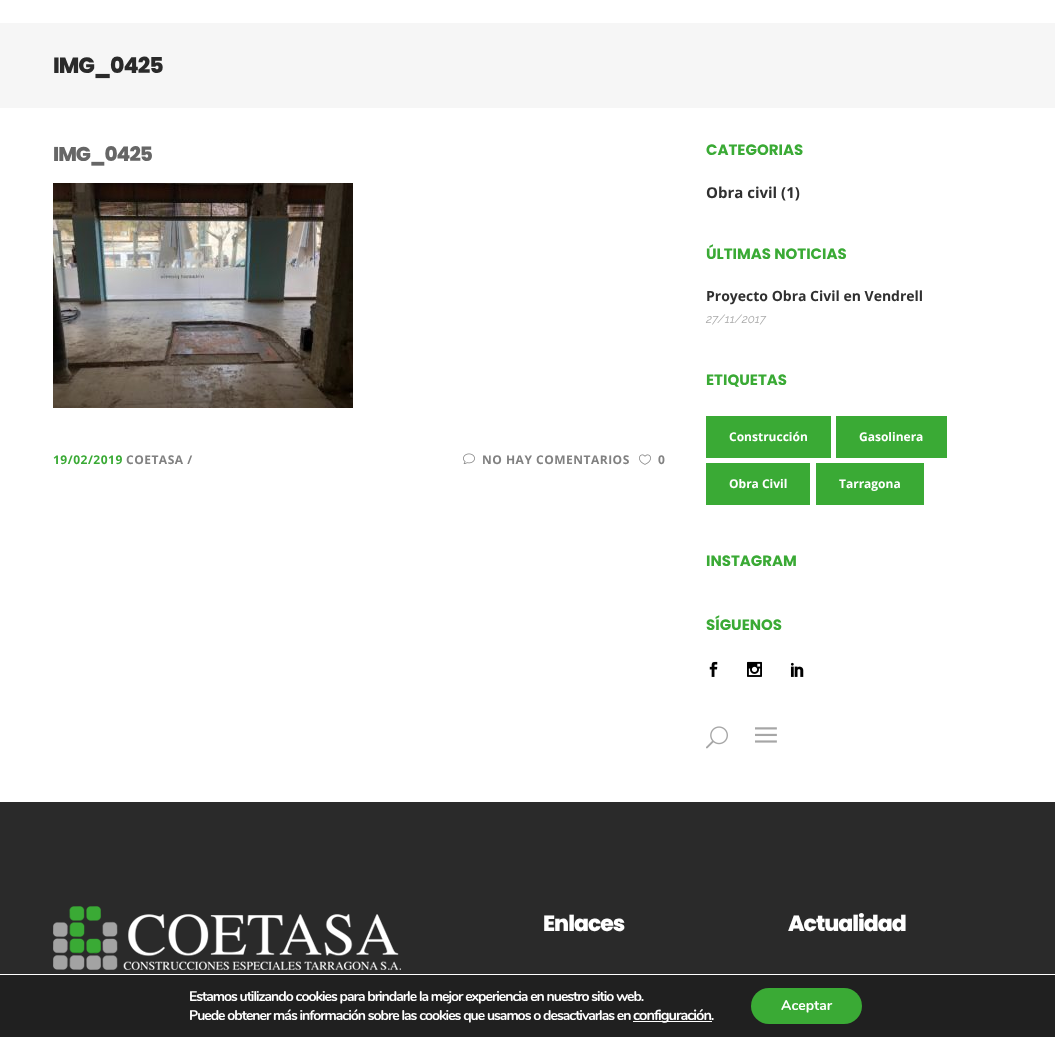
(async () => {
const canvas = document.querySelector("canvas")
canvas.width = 1055
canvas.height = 1037
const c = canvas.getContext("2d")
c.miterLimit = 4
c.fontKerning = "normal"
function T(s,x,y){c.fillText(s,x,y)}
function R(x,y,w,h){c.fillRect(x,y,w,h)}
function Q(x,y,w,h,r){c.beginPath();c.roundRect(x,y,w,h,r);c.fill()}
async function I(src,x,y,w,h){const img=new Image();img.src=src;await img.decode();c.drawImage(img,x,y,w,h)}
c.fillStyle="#fff"
R(0,0,1055,1037)
c.fillStyle="#f6f6f6"
R(0,23,1055,85)
c.letterSpacing="-1px"
c.font="800 22px Poppins"
c.fillStyle="#2a2a2a"
T("IMG_0425",53,73)
c.font="800 20px Poppins"
c.fillStyle="#666"
T("IMG_0425",53,161)
await I("1.png",53,183,300,225)
c.letterSpacing="0.5px"
c.font="bold 12px Open Sans"
c.fillStyle="#3aaa35"
T("19/02/2019",53,464)
c.fillStyle="#818181"
T("COETASA /",126,464)
await I("2.png",463,453,12,11)
T("NO HAY COMENTARIOS",482,464)
await I("3.png",639,454,12,11)
T("0",658,464)
c.letterSpacing="0px"
c.font="bold 15px Poppins"
c.fillStyle="#3aaa35"
T("CATEGORIAS",706,155)
c.font="bold 15px Open Sans"
c.fillStyle="#303030"
T("Obra civil (1)",706,198)
c.font="bold 15px Poppins"
c.fillStyle="#3aaa35"
T("ÚLTIMAS NOTICIAS",706,259)
c.font="bold 14px Open Sans"
c.fillStyle="#303030"
T("Proyecto Obra Civil en Vendrell",706,301)
c.font="italic 12px Raleway"
c.fillStyle="#ababab"
T("27/11/2017",706,323)
c.font="bold 15px Poppins"
c.fillStyle="#3aaa35"
T("ETIQUETAS",706,385)
R(706,416,125,42)
c.font="bold 12px Open Sans"
c.fillStyle="#fff"
T("Construcción",729,441)
c.fillStyle="#3aaa35"
R(836,416,111,42)
c.fillStyle="#fff"
T("Gasolinera",859,441)
c.fillStyle="#3aaa35"
R(706,463,104,42)
c.fillStyle="#fff"
T("Obra Civil",729,488)
c.fillStyle="#3aaa35"
R(816,463,108,42)
c.fillStyle="#fff"
T("Tarragona",839,488)
c.font="bold 15px Poppins"
c.fillStyle="#3aaa35"
T("INSTAGRAM",706,566)
T("SÍGUENOS",706,630)
await I("4.png",709,661,9,16)
await I("5.png",747,661,15,16)
await I("6.png",790,662,14,15)
await I("7.png",706,726,22,23)
await I("8.png",755,727,22,16)
c.fillStyle="#2a2a2a"
R(0,802,1055,172)
await I("9.png",53,906,348,64)
c.letterSpacing="-1px"
c.font="800 22px Poppins"
c.fillStyle="#fff"
T("Enlaces",543,931)
T("Actualidad",788,931)
c.fillStyle="#202020"
R(0,975,1055,62)
c.font="bold 14px Nunito"
c.fillStyle="#fff"
T("Estamos utilizando cookies para brindarle la mejor experiencia en nuestro sitio web.",189,1001)
T("Puede obtener más información sobre las cookies que usamos o desactivarlas en",189,1020)
R(633,1021,79,1)
c.font="bold 14.5px Nunito"
T("configuración.",633,1020)
c.fillStyle="#3aaa35"
Q(751,988,111,36,18)
c.letterSpacing="0px"
c.font="bold 14px Nunito"
c.fillStyle="#fff"
T("Aceptar",781,1010)
})()
